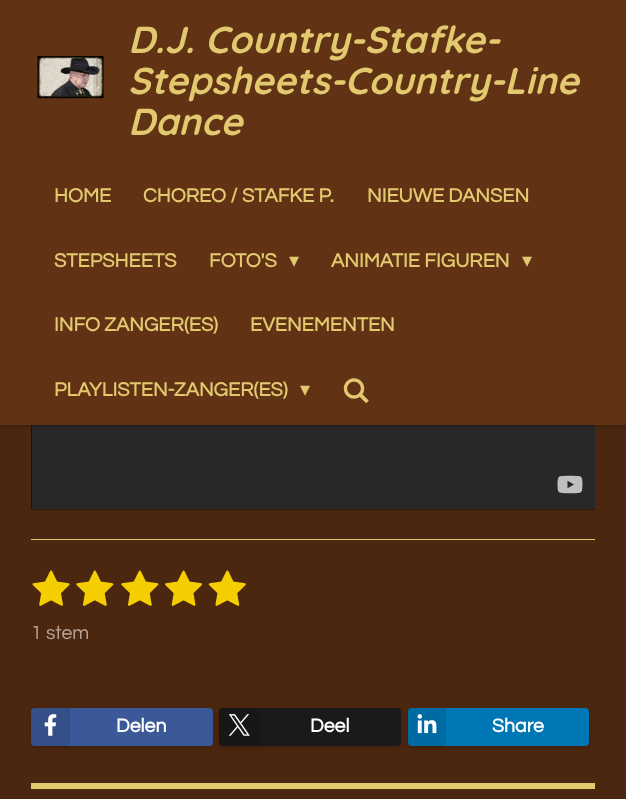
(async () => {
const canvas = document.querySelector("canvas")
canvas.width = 626
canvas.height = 799
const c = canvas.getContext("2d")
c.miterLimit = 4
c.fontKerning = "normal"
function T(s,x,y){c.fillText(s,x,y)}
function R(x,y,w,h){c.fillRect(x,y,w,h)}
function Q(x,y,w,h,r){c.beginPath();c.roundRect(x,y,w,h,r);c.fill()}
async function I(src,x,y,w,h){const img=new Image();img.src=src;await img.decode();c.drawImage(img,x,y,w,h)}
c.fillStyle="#4c270f"
R(0,0,626,799)
await I("3.png",31,425,564,85)
c.fillStyle="#0000004d"
c.filter="blur(2px)"
c.beginPath()
c.rect(0,1,626,425)
c.fill()
c.filter="none"
c.fillStyle="#613213"
R(0,0,626,425)
await I("1.png",37,55,67,44)
c.font="italic bold 37.5px Quicksand"
c.fillStyle="#e2c86f"
T("D.J. Country-Stafke-",128,53)
T("Stepsheets-Country-Line",128,94)
T("Dance",128,135)
c.font="bold 20px Questrial"
T("HOME",54,202)
T("CHOREO / STAFKE P.",143,202)
T("NIEUWE DANSEN",367,202)
T("STEPSHEETS",54,267)
T("FOTO'S",209,267)
c.font="20px DejaVu Sans"
T("▾",289,267)
c.font="bold 20px Questrial"
T("ANIMATIE FIGUREN",331,267)
c.font="20px DejaVu Sans"
T("▾",522,267)
c.font="bold 20px Questrial"
T("INFO ZANGER(ES)",54,331)
T("EVENEMENTEN",250,331)
T("PLAYLISTEN-ZANGER(ES)",54,396)
c.font="20px DejaVu Sans"
T("▾",300,396)
await I("2.png",343,378,26,26)
R(31,539,564,1)
await I("4.png",32,570,38,36)
await I("5.png",76,570,38,36)
await I("5.png",121,570,38,36)
await I("6.png",165,570,38,36)
await I("7.png",208,570,38,36)
c.font="19.5px Questrial"
c.fillStyle="#b8a395"
T("1 stem",31,639)
c.fillStyle="#00000033"
c.filter="blur(2px)"
c.beginPath()
c.roundRect(31,709,182,39,4)
c.fill()
c.filter="none"
c.fillStyle="#3b5998"
Q(31,708,182,38,4)
c.fillStyle="#0000001a"
c.beginPath()
c.roundRect(31,708,39,38,[4,0,0,4])
c.fill()
await I("8.png",44,714,13,22)
c.font="bold 19.5px Questrial"
c.fillStyle="#fff"
T("Delen",116,732)
c.fillStyle="#00000033"
c.filter="blur(2px)"
c.beginPath()
c.roundRect(219,709,182,39,4)
c.fill()
c.filter="none"
c.fillStyle="#1a1a1a"
Q(219,708,182,38,4)
c.fillStyle="#0000001a"
c.beginPath()
c.roundRect(219,708,40,38,[4,0,0,4])
c.fill()
await I("9.png",228,714,22,22)
c.fillStyle="#fff"
T("Deel",310,732)
c.fillStyle="#00000033"
c.filter="blur(2px)"
c.beginPath()
c.roundRect(408,709,181,39,4)
c.fill()
c.filter="none"
c.fillStyle="#0077b5"
Q(408,708,181,38,4)
c.fillStyle="#0000001a"
c.beginPath()
c.roundRect(408,708,38,38,[4,0,0,4])
c.fill()
await I("10.png",417,714,20,20)
c.fillStyle="#fff"
T("Share",492,732)
c.fillStyle="#e2c86f"
R(31,783,564,6)
})()
